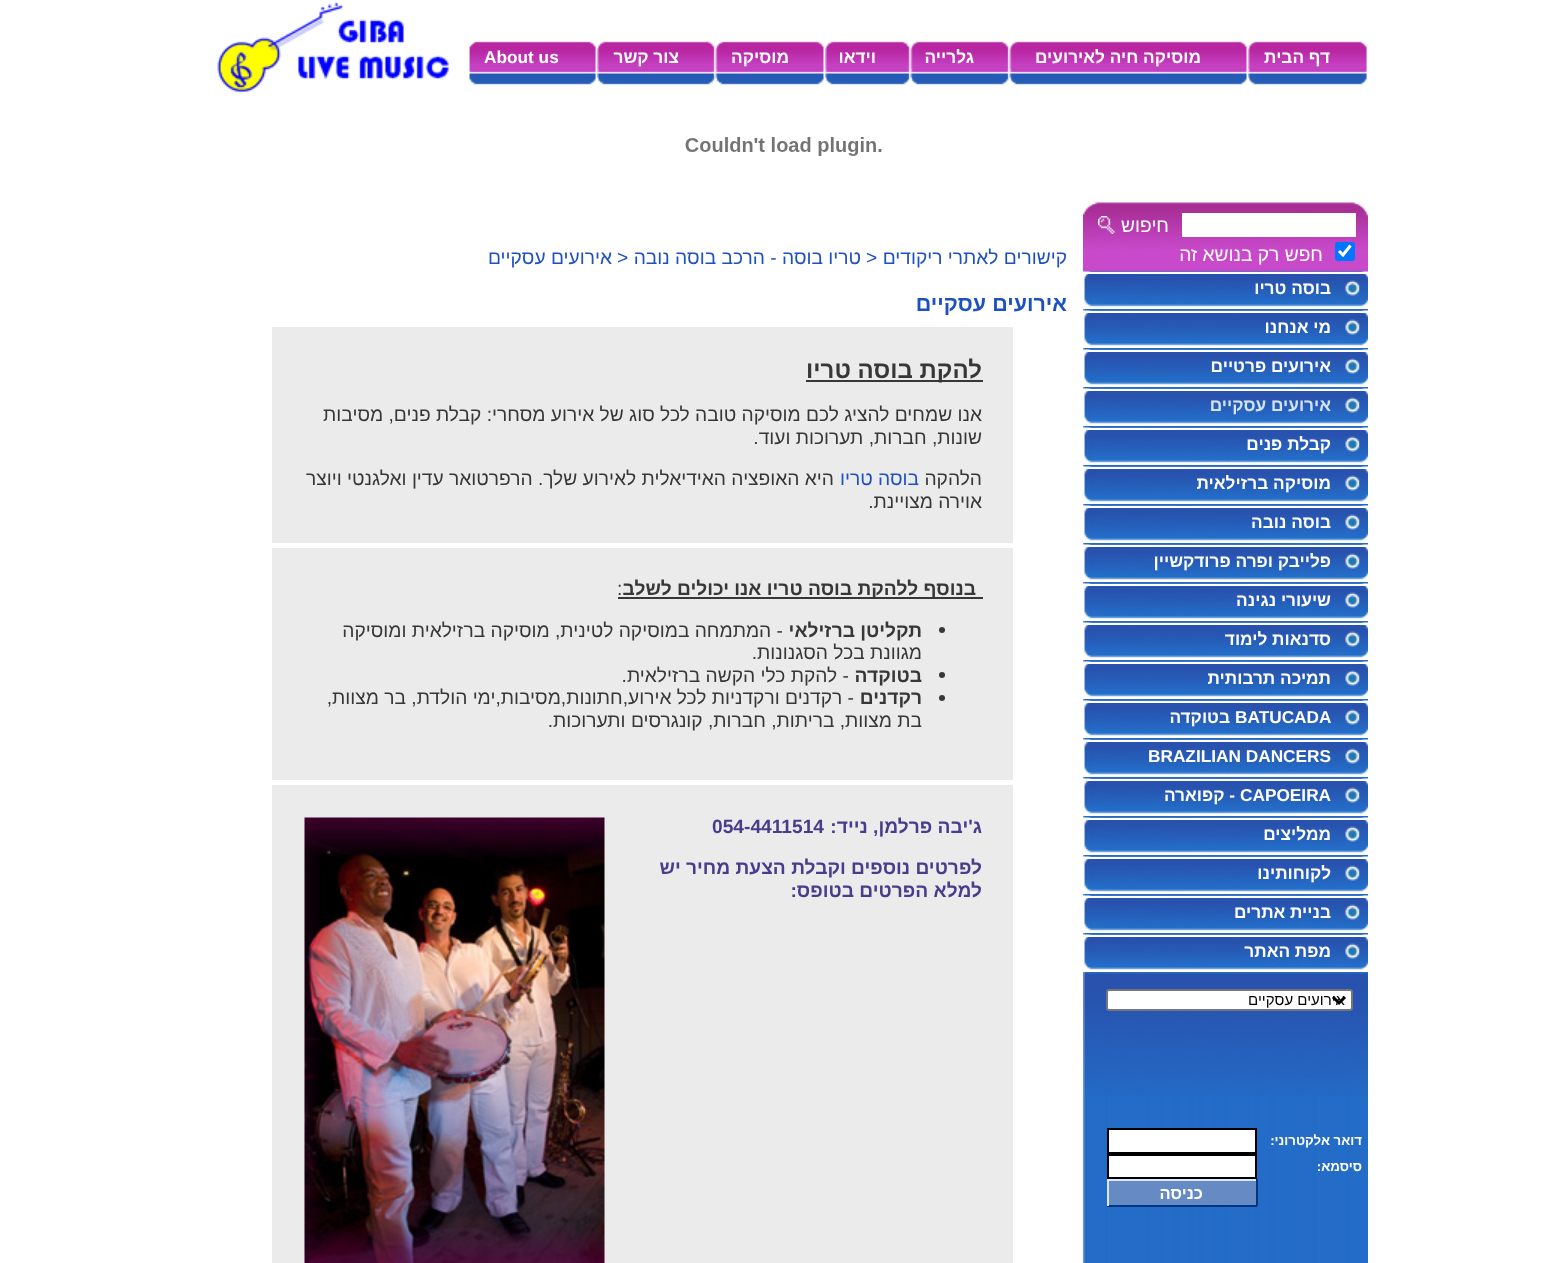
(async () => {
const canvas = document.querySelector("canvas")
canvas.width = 1567
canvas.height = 1263
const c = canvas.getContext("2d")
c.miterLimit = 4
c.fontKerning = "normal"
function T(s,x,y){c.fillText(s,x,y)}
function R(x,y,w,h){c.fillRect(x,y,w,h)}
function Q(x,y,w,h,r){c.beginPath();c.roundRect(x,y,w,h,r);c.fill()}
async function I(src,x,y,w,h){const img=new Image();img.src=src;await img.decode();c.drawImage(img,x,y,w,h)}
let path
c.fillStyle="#fff"
R(0,0,1567,1263)
await I("1.png",475,41,886,44)
await I("2.png",1360,41,8,44)
c.direction="rtl"
c.font="bold 17.25px Liberation Sans"
T("דף הבית",1330,63)
await I("3.png",1240,41,16,44)
T("מוסיקה חיה לאירועים",1201,63)
await I("4.png",1002,41,15,44)
T("גלרייה",974,63)
await I("4.png",903,41,15,44)
T("וידאו",876,63)
await I("3.png",817,41,16,44)
T("מוסיקה",789,63)
await I("5.png",708,41,15,44)
T("צור קשר",679,63)
await I("6.png",589,41,16,44)
c.direction="ltr"
T("About us",484,63)
await I("7.png",456,41,20,44)
await I("8.png",217,2,233,91)
await I("9.png",685,137,197,19)
await I("10.png",1083,271,285,992)
await I("11.png",1083,201,285,71)
R(1182,213,174,24)
c.direction="rtl"
c.font="19.2px Liberation Sans"
T("חיפוש",1169,232)
await I("12.png",1098,216,17,18)
c.fillStyle="#0075ff"
Q(1335,242,20,19,3)
path = new Path2D("M1339 251l4 4l7.5-9.5")
c.strokeStyle="#fff"
c.lineWidth=3.1
c.stroke(path)
c.fillStyle="#fff"
T("חפש רק בנושא זה",1323,261)
await I("13.png",1083,271,285,38)
R(1083,272,285,2)
c.font="bold 17.25px Liberation Sans"
T("בוסה טריו",1331,294)
await I("14.png",1083,310,285,38)
R(1083,311,285,2)
T("מי אנחנו",1331,333)
await I("14.png",1083,349,285,38)
R(1083,350,285,2)
T("אירועים פרטיים",1331,372)
await I("14.png",1083,388,285,38)
R(1083,389,285,2)
c.fillStyle="#d4e3f4"
T("אירועים עסקיים",1331,411)
await I("14.png",1083,427,285,38)
c.fillStyle="#fff"
R(1083,428,285,2)
T("קבלת פנים",1331,450)
await I("14.png",1083,466,285,38)
R(1083,467,285,2)
T("מוסיקה ברזילאית",1331,489)
await I("14.png",1083,505,285,38)
R(1083,506,285,2)
T("בוסה נובה",1331,528)
await I("14.png",1083,544,285,38)
R(1083,545,285,2)
T("פלייבק ופרה פרודקשיין",1331,567)
await I("14.png",1083,583,285,38)
R(1083,584,285,2)
T("שיעורי נגינה",1331,606)
await I("14.png",1083,622,285,38)
R(1083,623,285,2)
T("סדנאות לימוד",1331,645)
await I("14.png",1083,661,285,38)
R(1083,662,285,2)
T("תמיכה תרבותית",1331,684)
await I("14.png",1083,700,285,38)
R(1083,701,285,2)
c.direction="ltr"
T("BATUCADA",1235,723)
c.direction="rtl"
T("בטוקדה",1230,723)
await I("14.png",1083,739,285,38)
R(1083,740,285,2)
c.direction="ltr"
T("BRAZILIAN DANCERS",1148,762)
await I("14.png",1083,778,285,38)
R(1083,779,285,2)
T("CAPOEIRA",1240,801)
c.direction="rtl"
T("- קפוארה",1235,801)
await I("14.png",1083,817,285,38)
R(1083,818,285,2)
T("ממליצים",1331,840)
await I("14.png",1083,856,285,38)
R(1083,857,285,2)
T("לקוחותינו",1331,879)
await I("14.png",1083,895,285,38)
R(1083,896,285,2)
T("בניית אתרים",1331,918)
await I("14.png",1083,934,285,38)
R(1083,935,285,2)
T("מפת האתר",1331,957)
await I("15.png",1083,973,285,123)
c.beginPath()
c.roundRect(1107,990,245,20,2)
c.fill()
c.strokeStyle="#767676"
c.lineWidth=2
c.stroke()
path = new Path2D("M1333 997l6 6l6-6")
c.strokeStyle="#000"
c.lineWidth=3
c.stroke(path)
c.font="15px Liberation Sans"
c.fillStyle="#000"
T("אירועים עסקיים",1345,1005)
c.font="bold 13.25px Liberation Sans"
c.fillStyle="#fff"
T("דואר אלקטרוני:",1362,1145)
c.beginPath()
c.rect(1108,1129,148,24)
c.fill()
c.lineWidth=2
c.stroke()
T("סיסמא:",1362,1171)
c.beginPath()
c.rect(1108,1155,148,23)
c.fill()
c.stroke()
c.fillStyle="#668bc4"
R(1109,1181,147,24)
c.fillStyle="#dbe6f6"
R(1107,1179,150,2)
c.fillStyle="#023683"
R(1256,1179,2,27)
R(1107,1205,150,2)
c.fillStyle="#dbe6f6"
R(1107,1179,2,27)
c.font="bold 16.5px Liberation Sans"
c.fillStyle="#fff"
T("כניסה",1203,1199)
c.font="19.2px Liberation Sans"
c.fillStyle="#1d50c0"
T("קישורים לאתרי ריקודים",1067,264)
c.direction="ltr"
T(">",866,264)
c.direction="rtl"
T("טריו בוסה - הרכב בוסה נובה",861,264)
c.direction="ltr"
T(">",617,264)
c.direction="rtl"
T("אירועים עסקיים",612,264)
c.font="bold 21.5px Liberation Sans"
T("אירועים עסקיים",1067,311)
c.fillStyle="#ebebeb"
R(272,327,741,216)
c.fillStyle="#373737"
R(806,380,177,2)
c.font="bold 24px Liberation Sans"
T("להקת בוסה טריו",982,378)
c.font="19.2px Liberation Sans"
T("אנו שמחים להציג לכם מוסיקה טובה לכל סוג של אירוע מסחרי: קבלת פנים, מסיבות",982,421)
T("שונות, חברות, תערוכות ועוד.",982,444)
T("הלהקה",982,485)
c.fillStyle="#1d50c0"
T("בוסה טריו",919,485)
c.fillStyle="#373737"
T("היא האופציה האידיאלית לאירוע שלך. הרפרטואר עדין ואלגנטי ויוצר",834,485)
T("אוירה מצויינת.",982,508)
c.fillStyle="#ebebeb"
R(272,548,741,232)
c.fillStyle="#373737"
R(618,597,365,2)
c.font="bold 19.2px Liberation Sans"
T("בנוסף ללהקת בוסה טריו אנו יכולים לשלב",976,595)
c.direction="ltr"
c.font="19.2px Liberation Sans"
T(":",617,595)
c.beginPath()
c.arc(942,630,3,0,7)
c.fill()
c.direction="rtl"
c.font="bold 19.2px Liberation Sans"
T("תקליטן ברזילאי",922,637)
c.font="19.2px Liberation Sans"
T("- המתמחה במוסיקה לטינית, מוסיקה ברזילאית ומוסיקה",783,637)
T("מגוונת בכל הסגנונות.",922,659)
c.beginPath()
c.arc(942,675,3,0,7)
c.fill()
c.font="bold 19.2px Liberation Sans"
T("בטוקדה",922,682)
c.font="19.2px Liberation Sans"
T("- להקת כלי הקשה ברזילאית.",849,682)
c.beginPath()
c.arc(942,698,3,0,7)
c.fill()
c.font="bold 19.2px Liberation Sans"
T("רקדנים",922,704)
c.font="19.2px Liberation Sans"
T("- רקדנים ורקדניות לכל אירוע,חתונות,מסיבות,ימי הולדת, בר מצוות,",854,704)
T("בת מצוות, בריתות, חברות, קונגרסים ותערוכות.",922,727)
c.fillStyle="#ebebeb"
R(272,785,741,478)
c.font="bold 19.2px Liberation Sans"
c.fillStyle="#483d8b"
T("ג'יבה פרלמן, נייד:",982,833)
c.direction="ltr"
T("054-4411514",712,833)
await I("16.png",304,817,301,446)
c.direction="rtl"
T("לפרטים נוספים וקבלת הצעת מחיר יש",982,874)
T("למלא הפרטים בטופס:",982,897)
})()
